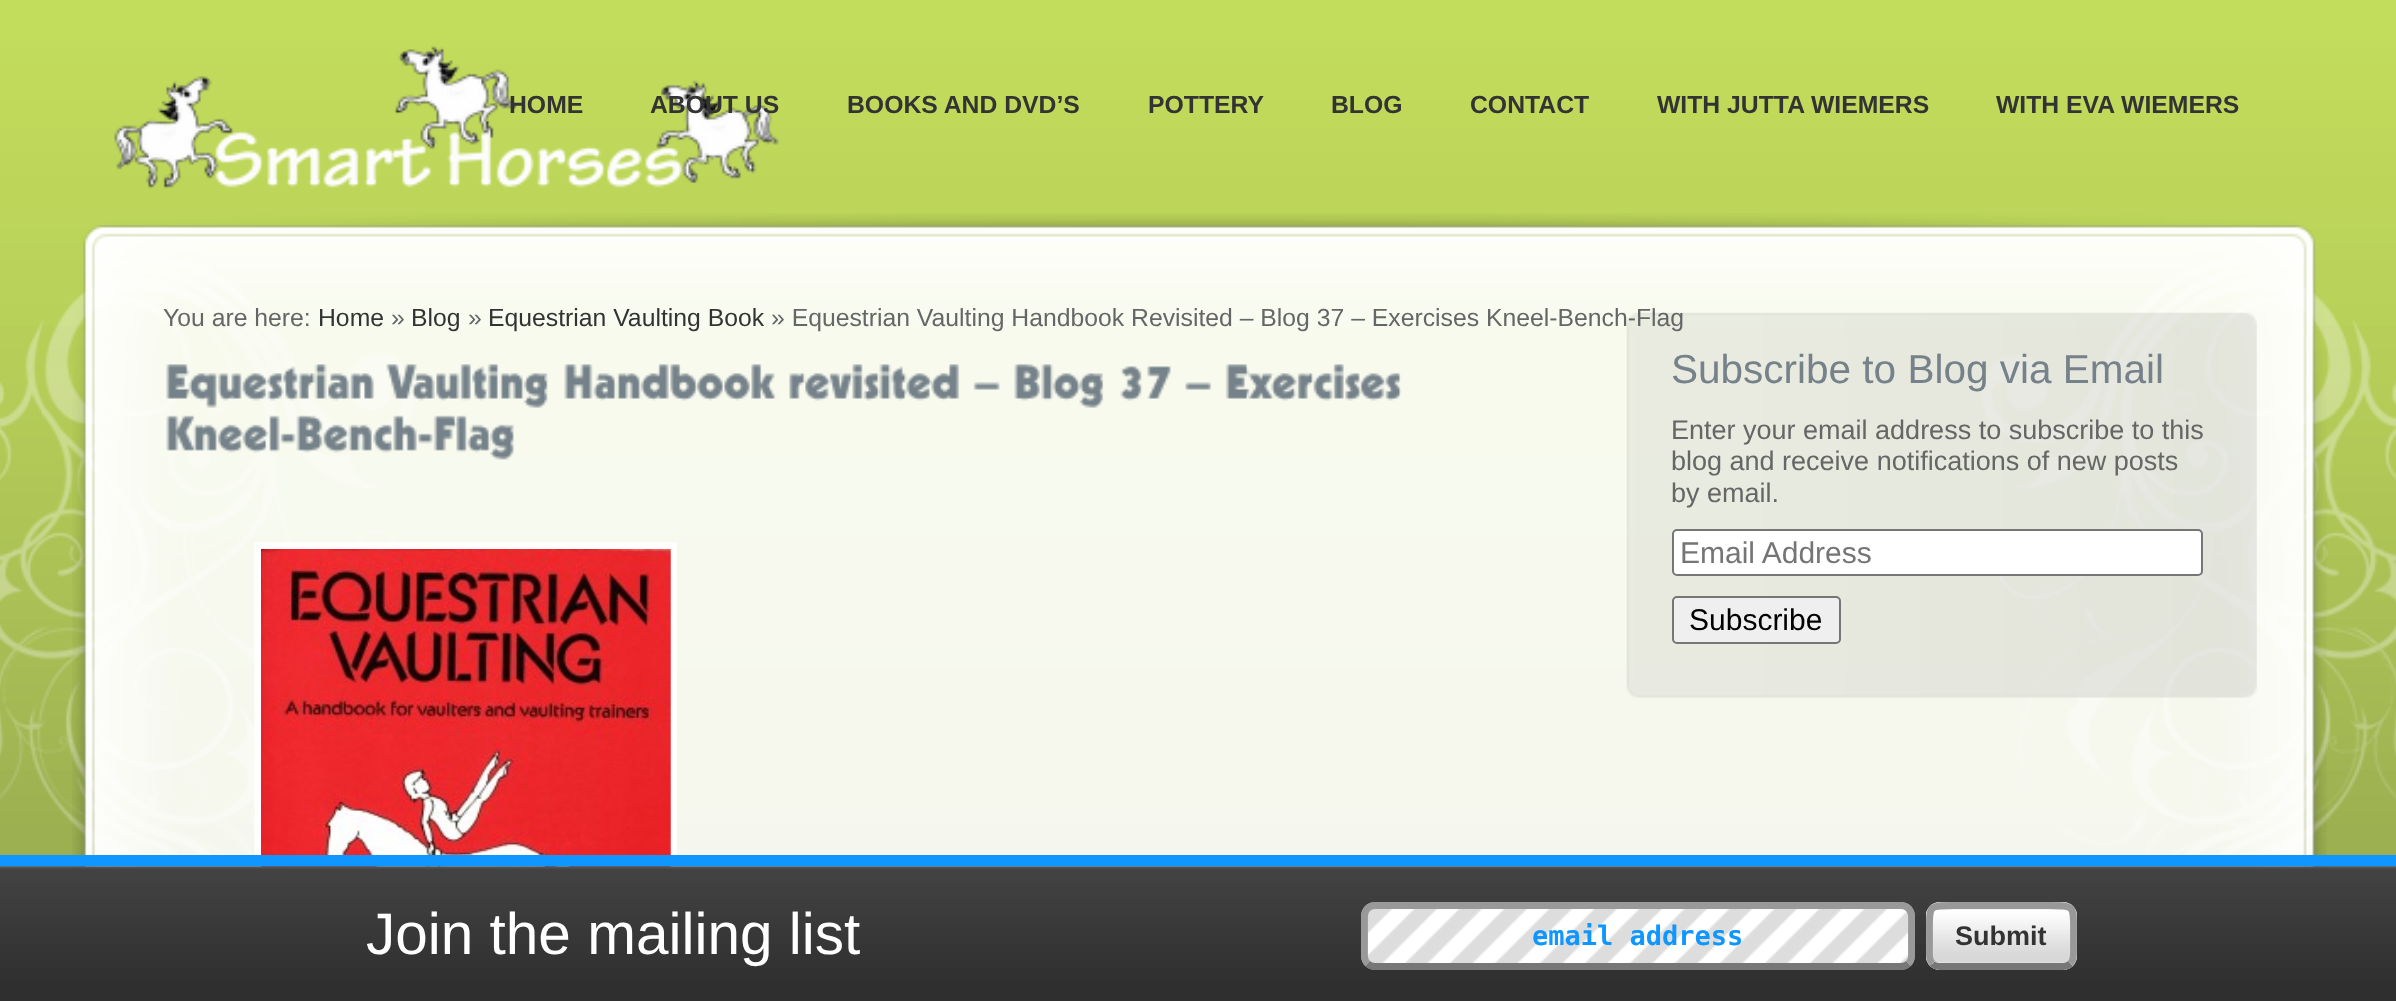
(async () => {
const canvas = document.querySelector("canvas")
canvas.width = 2396
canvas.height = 1001
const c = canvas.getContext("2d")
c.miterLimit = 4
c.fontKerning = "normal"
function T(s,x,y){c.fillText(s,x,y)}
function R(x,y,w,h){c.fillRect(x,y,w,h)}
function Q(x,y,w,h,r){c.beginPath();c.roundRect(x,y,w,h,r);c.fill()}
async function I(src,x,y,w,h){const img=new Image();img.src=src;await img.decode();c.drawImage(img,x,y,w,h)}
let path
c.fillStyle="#fff"
R(0,0,2396,1001)
await I("1.png",0,0,2396,867)
await I("2.png",0,256,2396,611)
await I("3.png",72,213,2255,654)
await I("4.png",114,45,665,144)
c.font="bold 24.75px Liberation Sans"
c.fillStyle="#333"
T("HOME",509,113)
T("ABOUT US",650,113)
T("BOOKS AND DVD’S",847,113)
T("POTTERY",1148,113)
T("BLOG",1331,113)
T("CONTACT",1470,113)
T("WITH JUTTA WIEMERS",1657,113)
T("WITH EVA WIEMERS",1996,113)
await I("5.png",83,225,2233,108)
c.font="24.75px Liberation Sans"
c.fillStyle="#666"
T("You are here:",163,326)
c.fillStyle="#333"
T("Home",318,326)
c.fillStyle="#666"
T("»",391,326)
c.fillStyle="#333"
T("Blog",411,326)
c.fillStyle="#666"
T("»",468,326)
c.fillStyle="#333"
T("Equestrian Vaulting Book",488,326)
c.fillStyle="#666"
T("» Equestrian Vaulting Handbook Revisited – Blog 37 – Exercises Kneel-Bench-Flag",771,326)
await I("6.png",83,333,2233,534)
await I("7.png",166,364,209,44)
await I("8.png",386,364,162,44)
await I("9.png",564,364,213,37)
await I("10.png",789,364,171,37)
await I("11.png",973,382,27,8)
await I("12.png",1014,364,90,44)
await I("13.png",1120,366,51,35)
await I("14.png",1185,382,27,8)
await I("15.png",1225,364,177,37)
await I("16.png",166,415,348,45)
await I("17.png",254,542,423,325)
await I("18.png",670,549,1,318)
await I("19.png",1626,333,631,345)
await I("20.png",1626,312,631,21)
c.font="40.5px Liberation Sans"
c.fillStyle="#76828a"
T("Subscribe to Blog via Email",1671,383)
c.font="27px Liberation Sans"
c.fillStyle="#666"
T("Enter your email address to subscribe to this",1671,439)
T("blog and receive notifications of new posts",1671,470)
T("by email.",1671,502)
c.fillStyle="#fff"
c.beginPath()
c.roundRect(1673,530,529,45,4)
c.fill()
c.strokeStyle="#767676"
c.lineWidth=2
c.stroke()
c.font="30px Liberation Sans"
c.fillStyle="#757575"
T("Email Address",1680,563)
c.fillStyle="#efefef"
c.beginPath()
c.roundRect(1673,597,167,46,4)
c.fill()
c.stroke()
c.fillStyle="#000"
T("Subscribe",1689,630)
await I("21.png",1626,677,631,21)
await I("22.png",0,855,2396,146)
c.font="58.5px Liberation Sans"
c.fillStyle="#fff"
T("Join the mailing list",366,954)
await I("23.png",1361,902,554,68)
path = new Path2D("M1908.5 963.5c-2 2-4.5 3-7.5 3h-526c-3 0-5.5-1-7.5-3")
c.strokeStyle="#777"
c.lineWidth=6.8
c.stroke(path)
path = new Path2D("M1367.5 963.5c-2-2-3-4.5-3-7.5v-40c0-3 1-5.5 3-7.5c2-2 4.5-3 7.5-3h526c3 0 5.5 1 7.5 3c2 2 3 4.5 3 7.5v40c0 3-1 5.5-3 7.5")
c.strokeStyle="#999"
c.stroke(path)
c.font="bold 27px DejaVu Sans Mono"
c.fillStyle="#1097ff"
T("email address",1532,945)
c.fillStyle="#eae9ea"
Q(1926,902,151,68,14)
await I("24.png",1926,902,151,68)
path = new Path2D("M2070.5 963.5c-2 2-4.5 3-7.5 3h-123.5c-2.5 0-5.5-1-7-3")
c.strokeStyle="#777"
c.stroke(path)
path = new Path2D("M1932.5 963.5c-4-4-3-9-3-14v-13.5c0-32.5-3-30.5 30.5-30.5h82.5c34 0 31-2 31 30.5v13.5c0 5 .5 10-3 14")
c.strokeStyle="#999"
c.stroke(path)
c.font="bold 27px Liberation Sans"
c.fillStyle="#333"
T("Submit",1955,945)
})()
